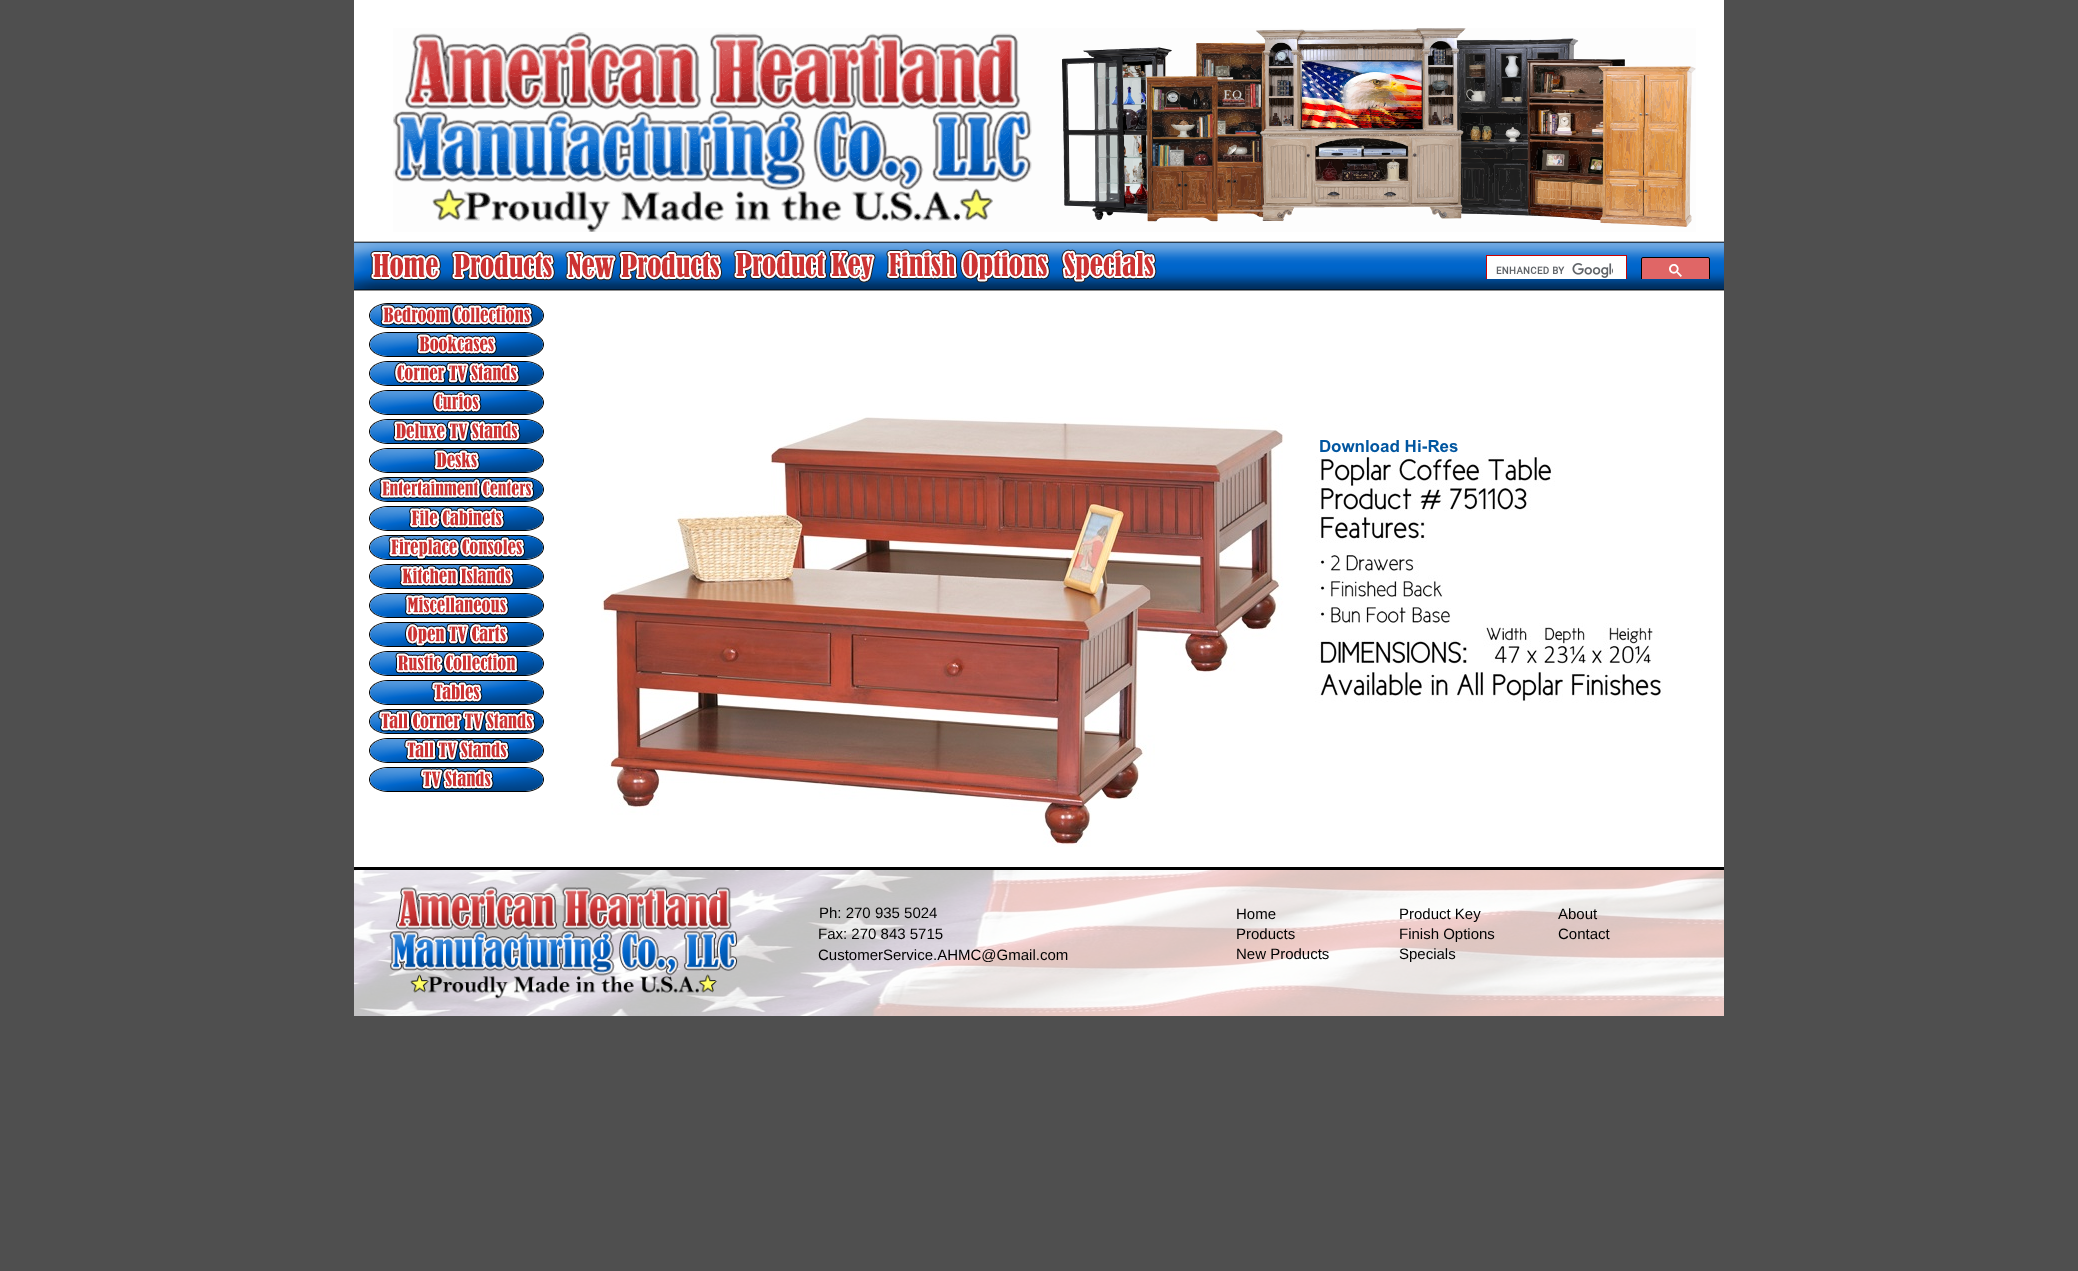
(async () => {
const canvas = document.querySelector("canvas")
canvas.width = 2078
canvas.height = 1271
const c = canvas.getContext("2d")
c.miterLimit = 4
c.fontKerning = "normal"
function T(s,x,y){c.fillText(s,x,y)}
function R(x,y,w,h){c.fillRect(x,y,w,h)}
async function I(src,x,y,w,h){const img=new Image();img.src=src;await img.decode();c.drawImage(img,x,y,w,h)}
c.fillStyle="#4f4f4f"
R(0,0,2078,1271)
c.fillStyle="#fff"
R(354,0,1370,1016)
await I("1.png",393,28,1303,204)
await I("2.png",354,241,1370,50)
await I("3.png",370,249,787,34)
await I("4.png",1486,255,224,24)
await I("5.png",369,303,175,489)
await I("6.png",601,417,1062,430)
await I("7.png",1320,440,138,13)
c.fillStyle="#000"
R(354,867,1370,3)
await I("8.png",354,870,1370,146)
await I("9.png",389,886,349,113)
c.font="15px Liberation Sans"
T("Ph: 270 935 5024",819,918)
T("Home",1236,919)
T("Products",1236,939)
T("New Products",1236,959)
T("Product Key",1399,919)
T("Finish Options",1399,939)
T("Specials",1399,959)
T("About",1558,919)
T("Contact",1558,939)
T("Fax: 270 843 5715",818,939)
T("CustomerService.AHMC@Gmail.com",818,960)
})()
